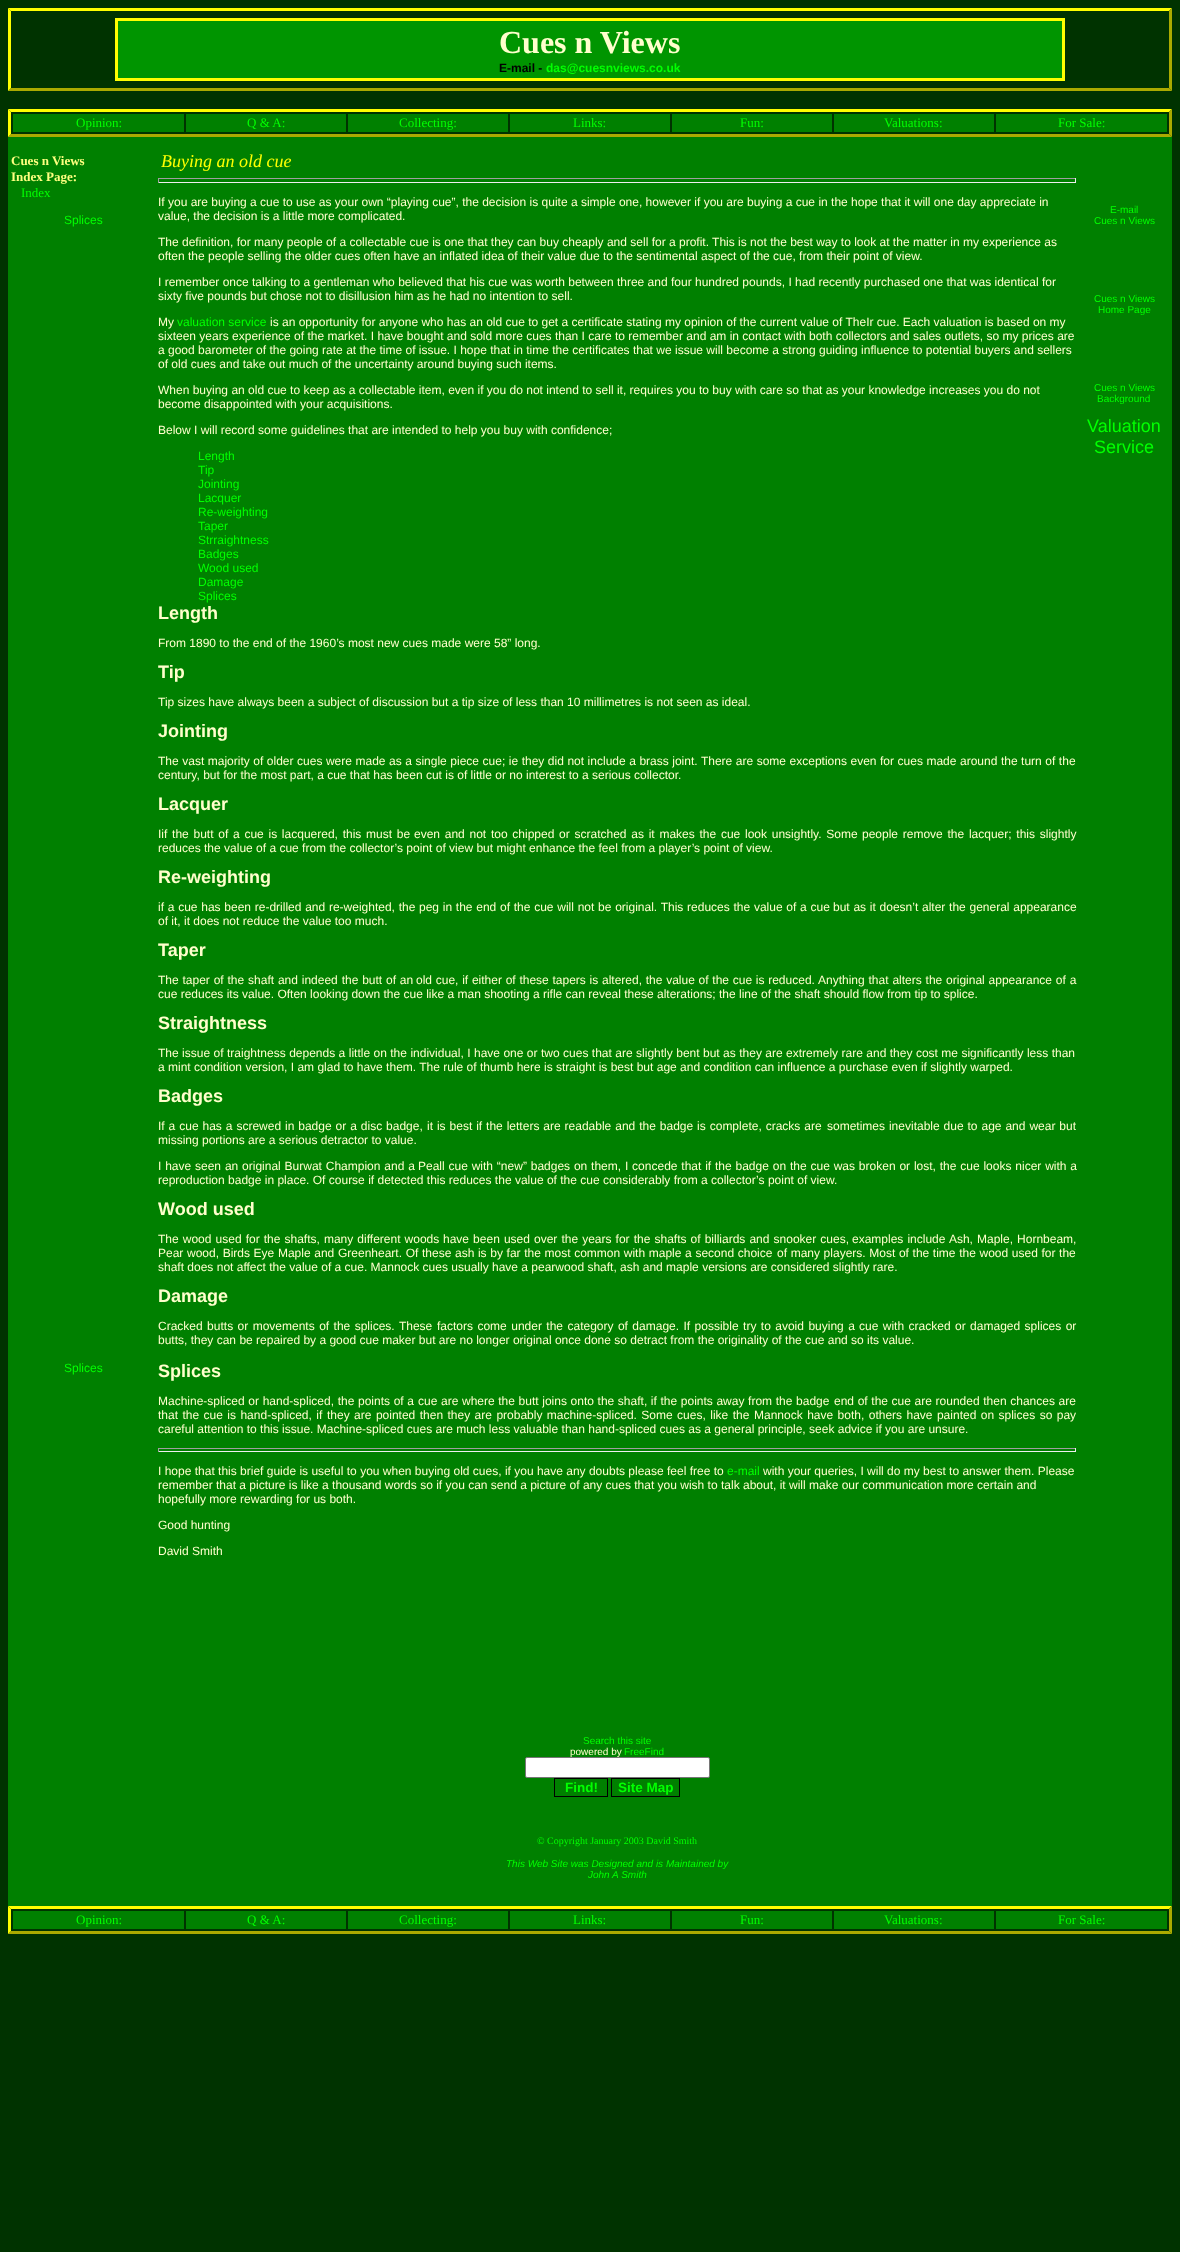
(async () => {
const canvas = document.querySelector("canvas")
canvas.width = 1180
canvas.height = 2252
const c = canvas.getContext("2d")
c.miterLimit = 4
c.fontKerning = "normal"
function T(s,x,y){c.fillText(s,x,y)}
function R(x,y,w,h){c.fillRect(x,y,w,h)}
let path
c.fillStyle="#030"
R(0,0,1180,2252)
c.fillStyle="#ff0"
path = new Path2D("M8 8h1164l-3 3h-1158z")
c.fill(path)
c.fillStyle="#aa0"
path = new Path2D("M1172 8v83l-3-3v-77z")
c.fill(path)
path = new Path2D("M1172 91h-1164l3-3h1158z")
c.fill(path)
c.fillStyle="#ff0"
path = new Path2D("M8 91v-83l3 3v77z")
c.fill(path)
c.fillStyle="#009500"
c.beginPath()
c.rect(116.5,19.5,947,60)
c.fill()
c.strokeStyle="#ff0"
c.lineWidth=3
c.stroke()
c.font="bold 32px Liberation Serif"
c.fillStyle="#ffc"
T("Cues n Views",499,53)
c.font="bold 12px Liberation Sans"
c.fillStyle="#000"
T("E-mail -",499,72)
c.fillStyle="#0f0"
T("das@cuesnviews.co.uk",546,72)
c.fillStyle="#ff0"
path = new Path2D("M8 109h1164l-3 3h-1158z")
c.fill(path)
c.fillStyle="#aa0"
path = new Path2D("M1172 109v28l-3-3v-22z")
c.fill(path)
path = new Path2D("M1172 137h-1164l3-3h1158z")
c.fill(path)
c.fillStyle="#ff0"
path = new Path2D("M8 137v-28l3 3v22z")
c.fill(path)
c.fillStyle="#008000"
R(13,114,171,18)
c.font="13px Liberation Serif"
c.fillStyle="#0f0"
T("Opinion:",76,127)
c.fillStyle="#008000"
R(186,114,160,18)
c.fillStyle="#0f0"
T("Q & A:",247,127)
c.fillStyle="#008000"
R(348,114,160,18)
c.fillStyle="#0f0"
T("Collecting:",399,127)
c.fillStyle="#008000"
R(510,114,160,18)
c.fillStyle="#0f0"
T("Links:",573,127)
c.fillStyle="#008000"
R(672,114,160,18)
c.fillStyle="#0f0"
T("Fun:",740,127)
c.fillStyle="#008000"
R(834,114,160,18)
c.fillStyle="#0f0"
T("Valuations:",884,127)
c.fillStyle="#008000"
R(996,114,171,18)
c.fillStyle="#0f0"
T("For Sale:",1058,127)
c.fillStyle="#008000"
R(8,137,1164,466)
c.font="bold 13px Liberation Serif"
c.fillStyle="#ffff80"
T("Cues n Views",11,165)
T("Index Page:",11,181)
c.font="13px Liberation Serif"
c.fillStyle="#0f0"
T("Index",21,197)
c.font="12px Liberation Sans"
T("Splices",64,224)
c.font="italic 18px Liberation Serif"
c.fillStyle="#ff0"
T("Buying an old cue",161,167)
c.fillStyle="#9f9f9f"
R(158,178,918,1)
c.fillStyle="#eee"
R(1075,178,1,5)
R(158,182,918,1)
c.fillStyle="#9f9f9f"
R(158,178,1,5)
c.font="12px Liberation Sans"
c.fillStyle="#ffc"
T("If you are buying a cue to use as your own “playing cue”, the decision is quite a simple one, however if you are buying a cue in the hope that it will one day appreciate in",158,206)
T("value, the decision is a little more complicated.",158,220)
T("The definition, for many people of a collectable cue is one that they can buy cheaply and sell for a profit. This is not the best way to look at the matter in my experience as",158,246)
T("often the people selling the older cues often have an inflated idea of their value due to the sentimental aspect of the cue, from their point of view.",158,260)
T("I remember once talking to a gentleman who believed that his cue was worth between three and four hundred pounds, I had recently purchased one that was identical for",158,286)
T("sixty five pounds but chose not to disillusion him as he had no intention to sell.",158,300)
T("My",158,326)
c.fillStyle="#0f0"
T("valuation service",177,326)
c.fillStyle="#ffc"
T("is an opportunity for anyone who has an old cue to get a certificate stating my opinion of the current value of TheIr cue. Each valuation is based on my",270,326)
T("sixteen years experience of the market. I have bought and sold more cues than I care to remember and am in contact with both collectors and sales outlets, so my prices are",158,340)
T("a good barometer of the going rate at the time of issue. I hope that in time the certificates that we issue will become a strong guiding influence to potential buyers and sellers",158,354)
T("of old cues and take out much of the uncertainty around buying such items.",158,368)
T("When buying an old cue to keep as a collectable item, even if you do not intend to sell it, requires you to buy with care so that as your knowledge increases you do not",158,394)
T("become disappointed with your acquisitions.",158,408)
T("Below I will record some guidelines that are intended to help you buy with confidence;",158,434)
c.fillStyle="#0f0"
T("Length",198,460)
T("Tip",198,474)
T("Jointing",198,488)
T("Lacquer",198,502)
T("Re-weighting",198,516)
T("Taper",198,530)
T("Strraightness",198,544)
T("Badges",198,558)
T("Wood used",198,572)
T("Damage",198,586)
T("Splices",198,600)
c.font="10px Liberation Sans"
T("E-mail",1110,213)
T("Cues n Views",1094,224)
T("Cues n Views",1094,302)
T("Home Page",1098,313)
T("Cues n Views",1094,391)
T("Background",1097,402)
c.font="18px Liberation Sans"
T("Valuation",1087,432)
T("Service",1094,453)
c.fillStyle="#008000"
R(8,603,1164,744)
c.font="bold 18px Liberation Sans"
c.fillStyle="#ffc"
T("Length",158,619)
c.font="12px Liberation Sans"
T("From 1890 to the end of the 1960’s most new cues made were 58” long.",158,647)
c.font="bold 18px Liberation Sans"
T("Tip",158,678)
c.font="12px Liberation Sans"
T("Tip sizes have always been a subject of discussion but a tip size of less than 10 millimetres is not seen as ideal.",158,706)
c.font="bold 18px Liberation Sans"
T("Jointing",158,737)
c.wordSpacing="0.2px"
c.font="12px Liberation Sans"
T("The vast majority of older cues were made as a single piece cue; ie they did not include a brass joint. There are some exceptions even for cues made around the turn of the",158,765)
c.wordSpacing="0px"
T("century, but for the most part, a cue that has been cut is of little or no interest to a serious collector.",158,779)
c.font="bold 18px Liberation Sans"
T("Lacquer",158,810)
c.wordSpacing="1.4px"
c.font="12px Liberation Sans"
T("Iif the butt of a cue is lacquered, this must be",158,838)
T("even and not too chipped or scratched as it makes the cue look unsightly. Some",414,838)
T("people remove the lacquer; this slightly",862,838)
c.wordSpacing="0px"
T("reduces the value of a cue from the collector’s point of view but might enhance the feel from a player’s point of view.",158,852)
c.font="bold 18px Liberation Sans"
T("Re-weighting",158,883)
c.wordSpacing="0.4px"
c.font="12px Liberation Sans"
T("if a cue has been re-drilled and re-weighted, the",158,911)
T("peg in the end of the cue will not be original. This reduces the value of a cue",419,911)
T("but as it doesn’t alter the general appearance",833,911)
c.wordSpacing="0px"
T("of it, it does not reduce the value too much.",158,925)
c.font="bold 18px Liberation Sans"
T("Taper",158,956)
c.wordSpacing="0.5px"
c.font="12px Liberation Sans"
T("The taper of the shaft and indeed the butt of an",158,984)
c.wordSpacing="0.4px"
T("old cue, if either of these tapers is altered, the value of the cue is reduced.",416,984)
c.wordSpacing="0.5px"
T("Anything that alters the original appearance of a",818,984)
c.wordSpacing="0px"
T("cue reduces its value. Often looking down the cue like a man shooting a rifle can reveal these alterations; the line of the shaft should flow from tip to splice.",158,998)
c.font="bold 18px Liberation Sans"
T("Straightness",158,1029)
c.wordSpacing="0.1px"
c.font="12px Liberation Sans"
T("The issue of traightness depends a little on the individual, I have one or two cues that are slightly bent but as they are extremely rare and they cost me significantly less than",158,1057)
c.wordSpacing="0px"
T("a mint condition version, I am glad to have them. The rule of thumb here is straight is best but age and condition can influence a purchase even if slightly warped.",158,1071)
c.font="bold 18px Liberation Sans"
T("Badges",158,1102)
c.wordSpacing="0.6px"
c.font="12px Liberation Sans"
T("If a cue has a screwed in badge or a disc badge,",158,1130)
T("it is best if the letters are readable and the badge is complete, cracks are",427,1130)
T("sometimes inevitable due to age and wear but",827,1130)
c.wordSpacing="0px"
T("missing portions are a serious detractor to value.",158,1144)
c.wordSpacing="0.5px"
T("I have seen an original Burwat Champion and a",158,1170)
T("Peall cue with “new” badges on them, I concede that if the badge on",418,1170)
T("the cue was broken or lost, the cue looks nicer with a",790,1170)
c.wordSpacing="0px"
T("reproduction badge in place. Of course if detected this reduces the value of the cue considerably from a collector’s point of view.",158,1184)
c.font="bold 18px Liberation Sans"
T("Wood used",158,1215)
c.wordSpacing="0.75px"
c.font="12px Liberation Sans"
T("The wood used for the shafts, many different woods",158,1243)
T("have been used over the years for the shafts of billiards and snooker cues,",443,1243)
T("examples include Ash, Maple, Hornbeam,",852,1243)
c.wordSpacing="0.3px"
T("Pear wood, Birds Eye Maple and",158,1257)
T("Greenheart. Of these ash is by far the most common with maple a second choice",338,1257)
T("of many players. Most of the time the wood used for the",777,1257)
c.wordSpacing="0px"
T("shaft does not affect the value of a cue. Mannock cues usually have a pearwood shaft, ash and maple versions are considered slightly rare.",158,1271)
c.font="bold 18px Liberation Sans"
T("Damage",158,1302)
c.wordSpacing="1.1px"
c.font="12px Liberation Sans"
T("Cracked butts or movements of the splices. These",158,1330)
T("factors come under the category of damage. If possible try to avoid buying a",437,1330)
T("cue with cracked or damaged splices or",859,1330)
c.wordSpacing="0px"
T("butts, they can be repaired by a good cue maker but are no longer original once done so detract from the originality of the cue and so its value.",158,1344)
c.fillStyle="#008000"
R(8,1347,1164,348)
c.fillStyle="#0f0"
T("Splices",64,1372)
c.font="bold 18px Liberation Sans"
c.fillStyle="#ffc"
T("Splices",158,1377)
c.wordSpacing="0.3px"
c.font="12px Liberation Sans"
T("Machine-spliced or hand-spliced, the points of a",158,1405)
T("cue are where the butt joins onto the shaft, if the points away from the badge",418,1405)
T("end of the cue are rounded then chances are",834,1405)
c.wordSpacing="1.1px"
T("that the cue is hand-spliced, if",158,1419)
T("they are pointed then they are probably machine-spliced. Some cues, like the",327,1419)
T("Mannock have both, others have painted on splices so pay",754,1419)
c.wordSpacing="0px"
T("careful attention to this issue. Machine-spliced cues are much less valuable than hand-spliced cues as a general principle, seek advice if you are unsure.",158,1433)
c.fillStyle="#9f9f9f"
R(158,1448,918,1)
c.fillStyle="#eee"
R(1075,1448,1,4)
R(158,1451,918,1)
c.fillStyle="#9f9f9f"
R(158,1448,1,4)
c.fillStyle="#ffc"
T("I hope that this brief guide is useful to you when buying old cues, if you have any doubts please feel free to",158,1475)
c.fillStyle="#0f0"
T("e-mail",727,1475)
c.fillStyle="#ffc"
T("with your queries, I will do my best to answer them. Please",763,1475)
T("remember that a picture is like a thousand words so if you can send a picture of any cues that you wish to talk about, it will make our communication more certain and",158,1489)
T("hopefully more rewarding for us both.",158,1503)
T("Good hunting",158,1529)
T("David Smith",158,1555)
c.fillStyle="#008000"
R(8,1695,1164,14)
R(8,1709,1164,197)
c.font="10px Liberation Sans"
c.fillStyle="#0f0"
T("Search this site",583,1744)
c.fillStyle="#ffc"
T("powered by",570,1755)
c.fillStyle="#0f0"
T("FreeFind",624,1755)
c.fillStyle="#fff"
c.beginPath()
c.roundRect(525.5,1757.5,184,20,1.5)
c.fill()
c.strokeStyle="#767676"
c.lineWidth=1
c.stroke()
c.strokeStyle="#000"
c.strokeRect(554.5,1778.5,53,18)
c.font="bold 13.5px Liberation Sans"
c.fillStyle="#0f0"
T("Find!",565,1792)
c.strokeRect(611.5,1778.5,68,18)
T("Site Map",618,1792)
c.font="10px Liberation Serif"
T("© Copyright January 2003 David Smith",537,1844)
c.font="italic 10px Liberation Sans"
T("This Web Site was Designed and is Maintained by",506,1867)
T("John A Smith",588,1878)
c.fillStyle="#ff0"
path = new Path2D("M8 1906h1164l-3 3h-1158z")
c.fill(path)
c.fillStyle="#aa0"
path = new Path2D("M1172 1906v28l-3-3v-22z")
c.fill(path)
path = new Path2D("M1172 1934h-1164l3-3h1158z")
c.fill(path)
c.fillStyle="#ff0"
path = new Path2D("M8 1934v-28l3 3v22z")
c.fill(path)
c.fillStyle="#008000"
R(13,1911,171,18)
c.font="13px Liberation Serif"
c.fillStyle="#0f0"
T("Opinion:",76,1924)
c.fillStyle="#008000"
R(186,1911,160,18)
c.fillStyle="#0f0"
T("Q & A:",247,1924)
c.fillStyle="#008000"
R(348,1911,160,18)
c.fillStyle="#0f0"
T("Collecting:",399,1924)
c.fillStyle="#008000"
R(510,1911,160,18)
c.fillStyle="#0f0"
T("Links:",573,1924)
c.fillStyle="#008000"
R(672,1911,160,18)
c.fillStyle="#0f0"
T("Fun:",740,1924)
c.fillStyle="#008000"
R(834,1911,160,18)
c.fillStyle="#0f0"
T("Valuations:",884,1924)
c.fillStyle="#008000"
R(996,1911,171,18)
c.fillStyle="#0f0"
T("For Sale:",1058,1924)
})()
